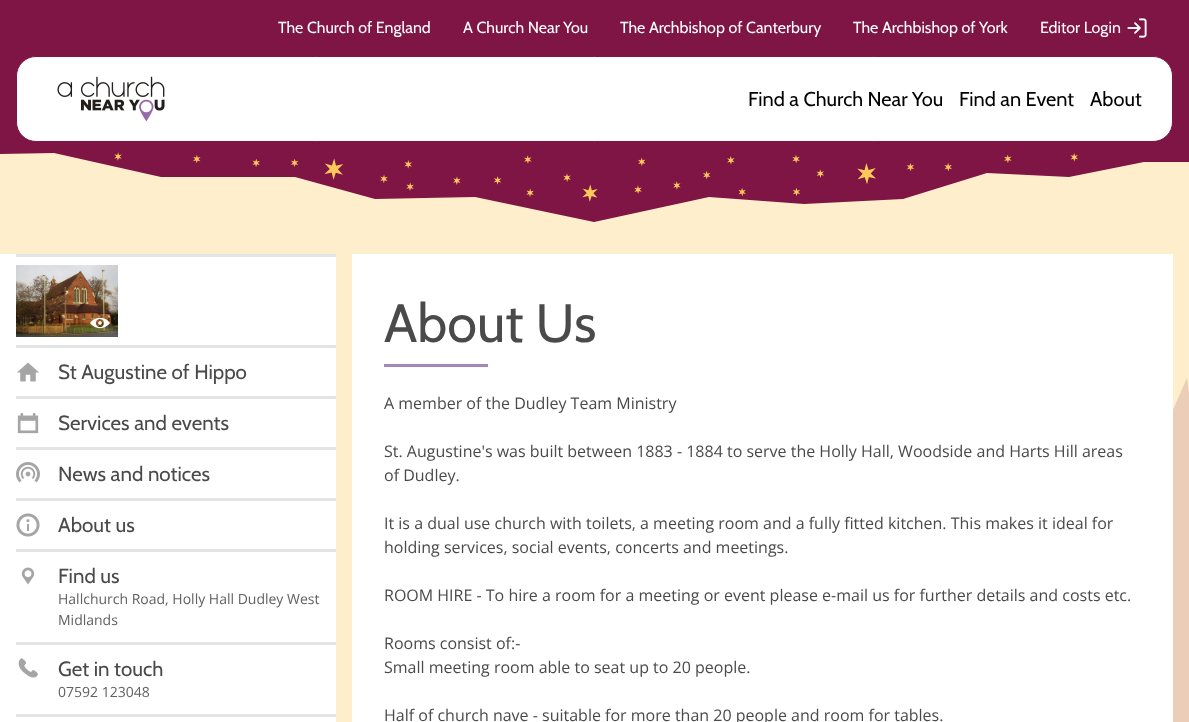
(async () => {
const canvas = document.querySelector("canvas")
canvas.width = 1189
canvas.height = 722
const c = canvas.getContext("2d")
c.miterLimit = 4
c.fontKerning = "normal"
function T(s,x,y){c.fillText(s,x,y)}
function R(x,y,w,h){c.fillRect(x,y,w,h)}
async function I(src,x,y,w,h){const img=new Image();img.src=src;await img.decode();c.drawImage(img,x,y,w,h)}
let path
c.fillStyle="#fec"
R(0,0,1189,722)
c.fillStyle="#7e1544"
R(0,0,1189,129)
c.font="16px Cabin"
c.fillStyle="#fff"
T("The Church of England",278,33)
T("A Church Near You",463,33)
T("The Archbishop of Canterbury",620,33)
T("The Archbishop of York",853,33)
T("Editor Login",1040,33)
await I("1.png",1127,18,20,20)
c.fillStyle="#7e1544"
path = new Path2D("M54 153l107 24h134l80 22l100-2l119 25l115-25l95 7l99-5l84-26l82 4l75-15h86l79-33h-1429l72 26z")
c.fill(path)
c.fillStyle="#fff"
c.beginPath()
c.roundRect(16.5,56.5,1156,85,19.5)
c.fill()
c.strokeStyle="#7e1544"
c.stroke()
await I("2.png",57,76,108,46)
c.font="20px Cabin"
c.fillStyle="#000"
T("Find a Church Near You",748,106)
T("Find an Event",959,106)
T("About",1090,106)
await I("3.png",114,152,964,50)
c.fillStyle="#eccdb8"
path = new Path2D("M1039 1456l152-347l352 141l-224-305l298-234l-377 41l-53-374l-153 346l-351-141l224 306l-298 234l377-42z")
c.fill(path)
c.fillStyle="#fff"
R(0,254,336,468)
c.fillStyle="#e4e4e4"
R(16,254,320,3)
R(16,345,320,3)
await I("4.png",16,265,102,72)
await I("5.png",90,317,20,12)
await I("6.png",17,362,22,20)
c.font="20.5px Cabin"
c.fillStyle="#4a4a4a"
T("St Augustine of Hippo",58,379)
c.fillStyle="#e4e4e4"
R(16,396,320,3)
await I("7.png",17,412,22,22)
c.fillStyle="#4a4a4a"
T("Services and events",58,430)
c.fillStyle="#e4e4e4"
R(16,447,320,3)
await I("8.png",16,462,24,21)
c.fillStyle="#4a4a4a"
T("News and notices",58,481)
c.fillStyle="#e4e4e4"
R(16,498,320,3)
await I("9.png",16,513,24,24)
c.fillStyle="#4a4a4a"
T("About us",58,532)
c.fillStyle="#e4e4e4"
R(16,549,320,3)
await I("10.png",21,567,14,18)
c.fillStyle="#4a4a4a"
T("Find us",58,583)
c.font="14px Open Sans"
c.fillStyle="#616161"
T("Hallchurch Road, Holly Hall Dudley West",58,604)
T("Midlands",58,625)
c.fillStyle="#e4e4e4"
R(16,642,320,3)
await I("11.png",18,658,20,20)
c.font="20.5px Cabin"
c.fillStyle="#4a4a4a"
T("Get in touch",58,676)
c.font="14px Open Sans"
c.fillStyle="#616161"
T("07592 123048",58,697)
c.fillStyle="#e4e4e4"
R(16,714,320,3)
c.fillStyle="#fff"
R(352,254,821,468)
c.font="54px Cabin"
c.fillStyle="#4a4a4a"
T("About Us",384,342)
c.fillStyle="#a688b7"
R(384,364,104,3)
c.font="16px Open Sans"
c.fillStyle="#4a4a4a"
T("A member of the Dudley Team Ministry",384,409)
T("St. Augustine's was built between 1883 - 1884 to serve the Holly Hall, Woodside and Harts Hill areas",384,457)
T("of Dudley.",384,481)
T("It is a dual use church with toilets, a meeting room and a fully fitted kitchen. This makes it ideal for",384,529)
T("holding services, social events, concerts and meetings.",384,553)
T("ROOM HIRE - To hire a room for a meeting or event please e-mail us for further details and costs etc.",384,601)
T("Rooms consist of:-",384,649)
T("Small meeting room able to seat up to 20 people.",384,673)
T("Half of church nave - suitable for more than 20 people and room for tables.",384,721)
})()
